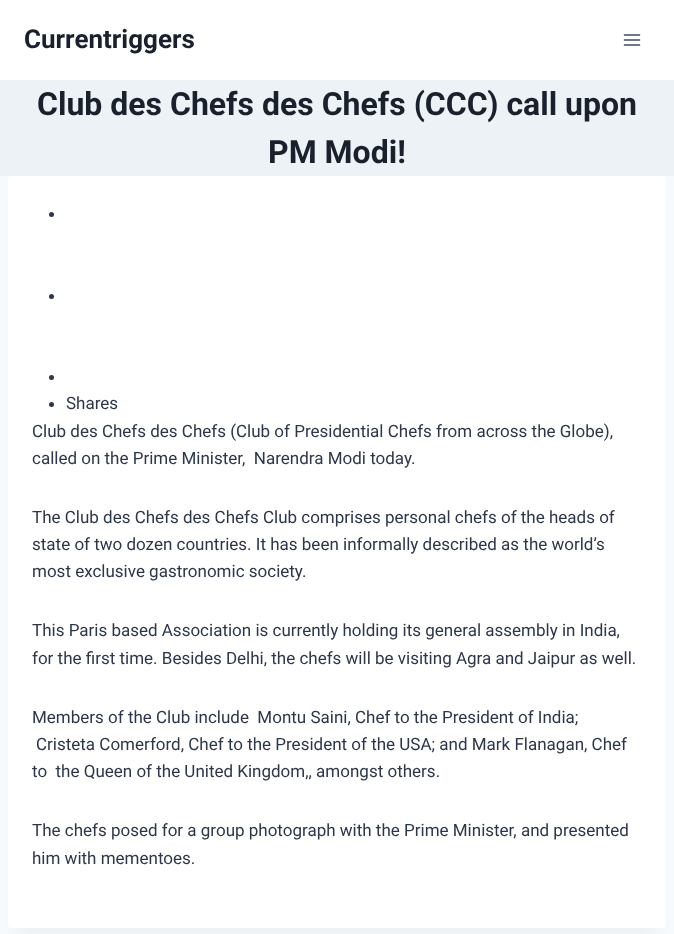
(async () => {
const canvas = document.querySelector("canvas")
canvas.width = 674
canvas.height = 934
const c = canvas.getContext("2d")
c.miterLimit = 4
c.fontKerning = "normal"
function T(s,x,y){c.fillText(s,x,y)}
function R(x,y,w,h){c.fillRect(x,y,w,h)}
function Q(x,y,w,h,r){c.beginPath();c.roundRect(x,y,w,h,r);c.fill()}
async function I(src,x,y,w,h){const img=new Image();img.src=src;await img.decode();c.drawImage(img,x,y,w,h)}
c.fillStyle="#f7fafc"
R(0,0,674,934)
c.fillStyle="#fff"
R(0,0,674,80)
c.font="bold 26px Roboto"
c.fillStyle="#1a202c"
T("Currentriggers",24,48)
await I("1.png",623,34,18,12)
c.fillStyle="#edf2f7"
R(0,80,674,96)
c.font="bold 32px Roboto"
c.fillStyle="#1a202c"
T("Club des Chefs des Chefs (CCC) call upon",37,115)
T("PM Modi!",268,163)
c.fillStyle="#0000000d"
c.filter="blur(7.5px)"
c.beginPath()
c.rect(18,201,638,732)
c.fill()
c.filter="none"
c.fillStyle="#fff"
Q(8,176,658,752,4)
c.fillStyle="#2d3748"
c.beginPath()
c.arc(51.5,214.5,2.5,0,7)
c.fill()
c.beginPath()
c.arc(51.5,296.5,2.5,0,7)
c.fill()
c.beginPath()
c.arc(51.5,377.5,2.5,0,7)
c.fill()
c.beginPath()
c.arc(51.5,404.5,2.5,0,7)
c.fill()
c.font="17px Roboto"
T("Shares",66,409)
T("Club des Chefs des Chefs (Club of Presidential Chefs from across the Globe),",32,437)
T("called on the Prime Minister,  Narendra Modi today.",32,464)
T("The Club des Chefs des Chefs Club comprises personal chefs of the heads of",32,523)
T("state of two dozen countries. It has been informally described as the world’s",32,550)
T("most exclusive gastronomic society.",32,577)
T("This Paris based Association is currently holding its general assembly in India,",32,636)
T("for the first time. Besides Delhi, the chefs will be visiting Agra and Jaipur as well.",32,664)
T("Members of the Club include  Montu Saini, Chef to the President of India;",32,723)
T("Cristeta Comerford, Chef to the President of the USA; and Mark Flanagan, Chef",36,750)
T("to  the Queen of the United Kingdom,, amongst others.",32,777)
T("The chefs posed for a group photograph with the Prime Minister, and presented",32,836)
T("him with mementoes.",32,864)
})()
